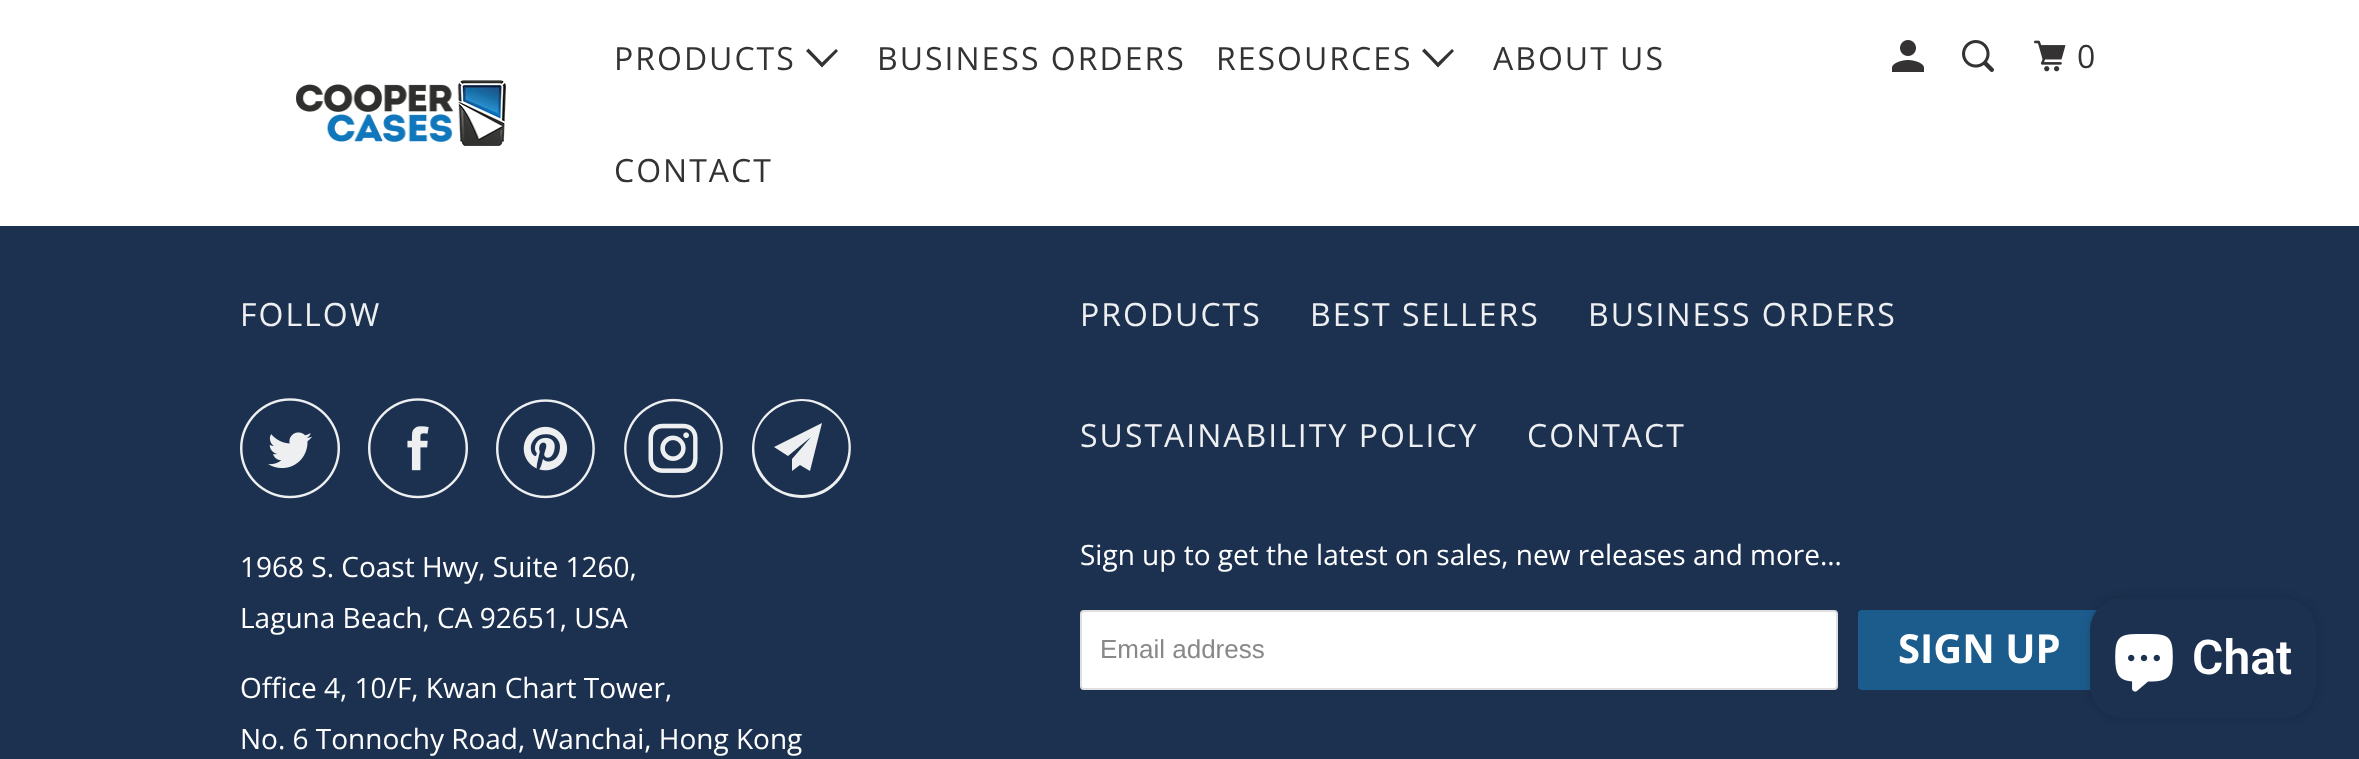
(async () => {
const canvas = document.querySelector("canvas")
canvas.width = 2359
canvas.height = 759
const c = canvas.getContext("2d")
c.miterLimit = 4
c.fontKerning = "normal"
function T(s,x,y){c.fillText(s,x,y)}
function R(x,y,w,h){c.fillRect(x,y,w,h)}
function Q(x,y,w,h,r){c.beginPath();c.roundRect(x,y,w,h,r);c.fill()}
async function I(src,x,y,w,h){const img=new Image();img.src=src;await img.decode();c.drawImage(img,x,y,w,h)}
let path
c.fillStyle="#1c3150"
R(0,0,2359,759)
c.fillStyle="#fff"
R(0,0,2359,226)
await I("1.png",296,80,210,66)
c.letterSpacing="2px"
c.font="32px Open Sans"
c.fillStyle="#343233"
T("PRODUCTS",614,70)
path = new Path2D("M814 59l-8-8l2.5-2.5l13.5 14l14-13.5l2 2l-16 16.5z")
c.fill(path)
T("BUSINESS ORDERS",877,70)
T("RESOURCES",1216,70)
path = new Path2D("M1430 59l-8-8l2.5-2.5l13.5 14l14-13.5l2 2l-16 16.5z")
c.fill(path)
T("ABOUT US",1493,70)
T("CONTACT",614,182)
await I("2.png",1892,40,32,32)
await I("3.png",1962,40,32,32)
await I("4.png",2034,40,32,32)
T("0",2077,68)
c.fillStyle="#eeeff0"
T("FOLLOW",240,326)
await I("5.png",240,398,100,101)
await I("6.png",368,398,100,101)
await I("7.png",496,399,99,100)
await I("8.png",624,398,99,100)
path = new Path2D("M810 471l-10-6l-8 6v-12l19-22l-23 19l-14-9l48-24zm-8-70c-11 0-21 4-29 10c-36 27-16 84 29 84c44 0 64-58 28-84c-9-6-18-10-28-10zm0 97c-11 0-22-4-30-10c-38-28-18-89 30-89c10 0 20 3 29 10c38 28 18 89-29 89z")
c.fill(path)
c.letterSpacing="0px"
c.font="28px Open Sans"
c.fillStyle="#fff"
T("1968 S. Coast Hwy, Suite 1260,",240,577)
T("Laguna Beach, CA 92651, USA",240,628)
T("Office 4, 10/F, Kwan Chart Tower,",240,698)
T("No. 6 Tonnochy Road, Wanchai, Hong Kong",240,749)
c.letterSpacing="2px"
c.font="32px Open Sans"
c.fillStyle="#eeeff0"
T("PRODUCTS",1080,326)
T("BEST SELLERS",1310,326)
T("BUSINESS ORDERS",1588,326)
T("SUSTAINABILITY POLICY",1080,447)
T("CONTACT",1527,447)
c.letterSpacing="0px"
c.font="28px Open Sans"
c.fillStyle="#fff"
T("Sign up to get the latest on sales, new releases and more…",1080,565)
c.beginPath()
c.roundRect(1081,611,756,78,3)
c.fill()
c.strokeStyle="#dfdfdf"
c.lineWidth=2
c.stroke()
c.font="26px Liberation Sans"
c.fillStyle="#888"
T("Email address",1100,658)
c.fillStyle="#1c5c8c"
Q(1858,610,242,80,4)
c.font="bold 40px Open Sans"
c.fillStyle="#fff"
T("SIGN UP",1898,663)
c.fillStyle="#00000026"
c.filter="blur(5px)"
c.beginPath()
c.roundRect(2090,598,226,120,32)
c.fill()
c.filter="none"
c.fillStyle="#1c3150"
Q(2090,598,226,120,32)
await I("9.png",2115,634,58,58)
c.font="600 48px Roboto"
c.fillStyle="#fff"
T("Chat",2192,674)
})()
